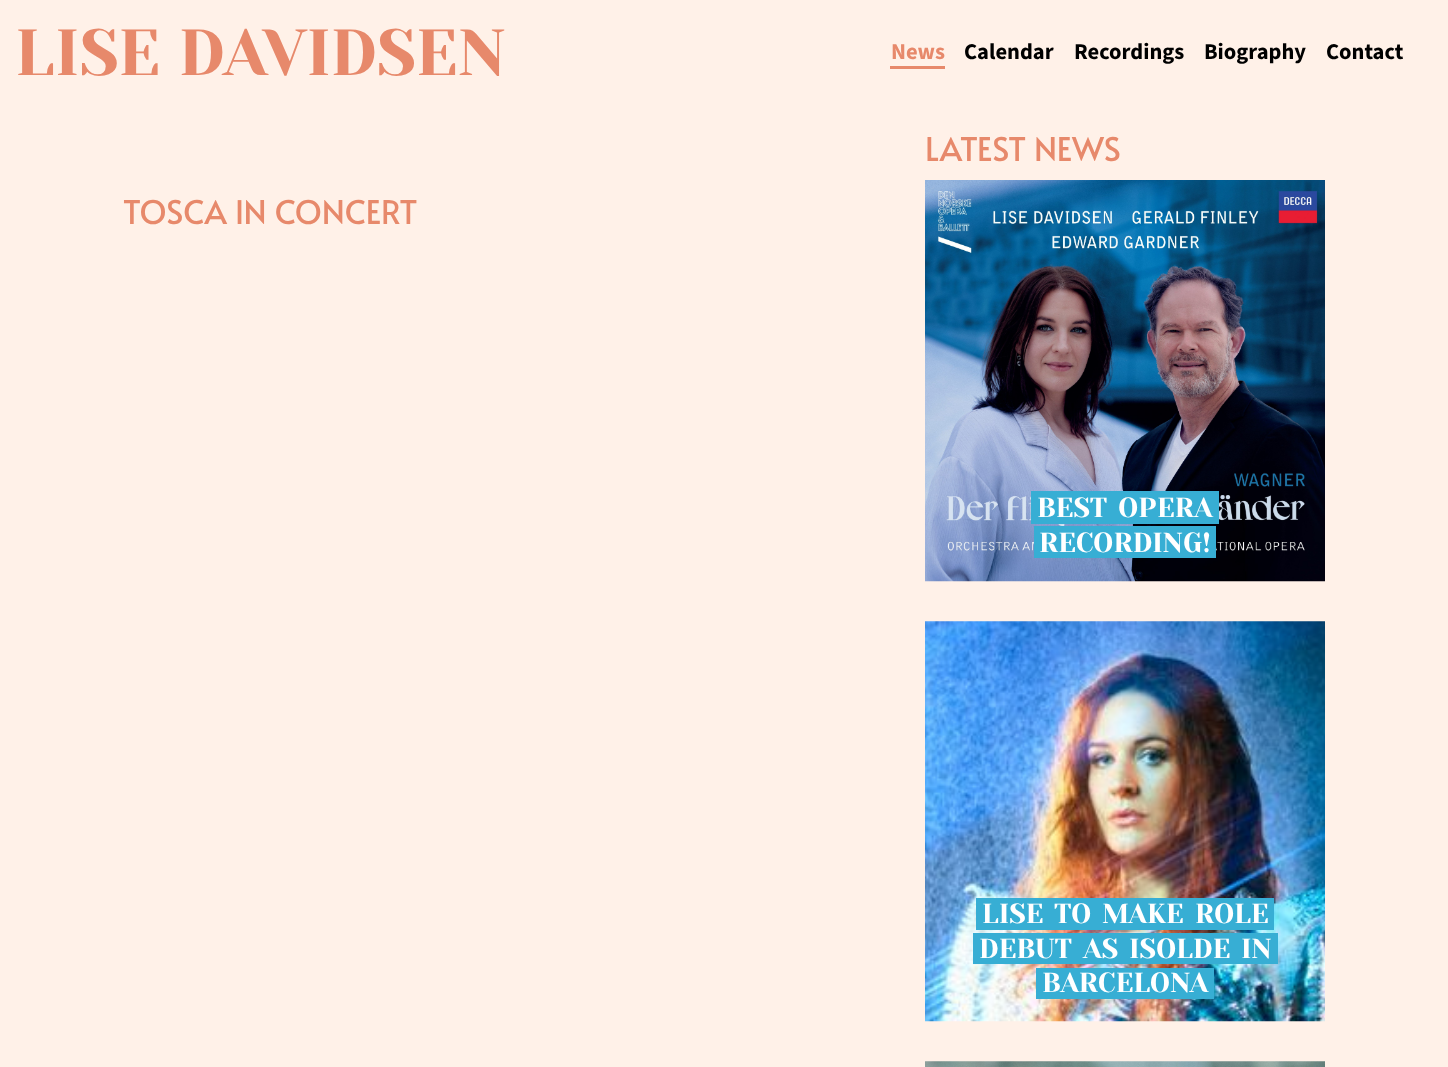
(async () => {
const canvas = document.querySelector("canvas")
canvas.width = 1448
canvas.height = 1067
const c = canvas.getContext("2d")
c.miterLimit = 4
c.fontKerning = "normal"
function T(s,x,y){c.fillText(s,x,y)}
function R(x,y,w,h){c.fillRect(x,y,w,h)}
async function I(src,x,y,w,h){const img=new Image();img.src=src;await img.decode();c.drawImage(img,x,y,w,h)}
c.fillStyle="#fff1e8"
R(0,0,1448,1067)
c.font="65px Yeseva One"
c.fillStyle="#e7896b"
T("LISE DAVIDSEN",15,75)
c.font="bold 22.5px 'Source Sans 3'"
T("News",891,59)
R(890,66,55,3)
c.fillStyle="#000"
T("Calendar",964,59)
T("Recordings",1074,59)
T("Biography",1204,59)
T("Contact",1326,59)
c.font="32.5px Alata"
c.fillStyle="#e7896b"
T("TOSCA IN CONCERT",123,224)
T("LATEST NEWS",925,161)
await I("1.png",925,180,400,402)
c.fillStyle="#37aed4"
R(1031,491,188,33)
c.font="27.5px Yeseva One"
c.fillStyle="#fff"
T("BEST",1037,517)
T("OPERA",1118,517)
c.fillStyle="#37aed4"
R(1034,526,182,32)
c.fillStyle="#fff"
T("RECORDING!",1039,552)
await I("2.png",925,621,400,401)
c.fillStyle="#37aed4"
R(976,898,298,32)
c.fillStyle="#fff"
T("LISE",982,923)
T("TO",1054,923)
T("MAKE",1102,923)
T("ROLE",1195,923)
c.fillStyle="#37aed4"
R(973,933,305,31)
c.fillStyle="#fff"
T("DEBUT",979,958)
T("AS",1083,958)
T("ISOLDE",1129,958)
T("IN",1241,958)
c.fillStyle="#37aed4"
R(1036,968,178,31)
c.fillStyle="#fff"
T("BARCELONA",1042,992)
await I("3.png",925,1061,400,6)
})()
